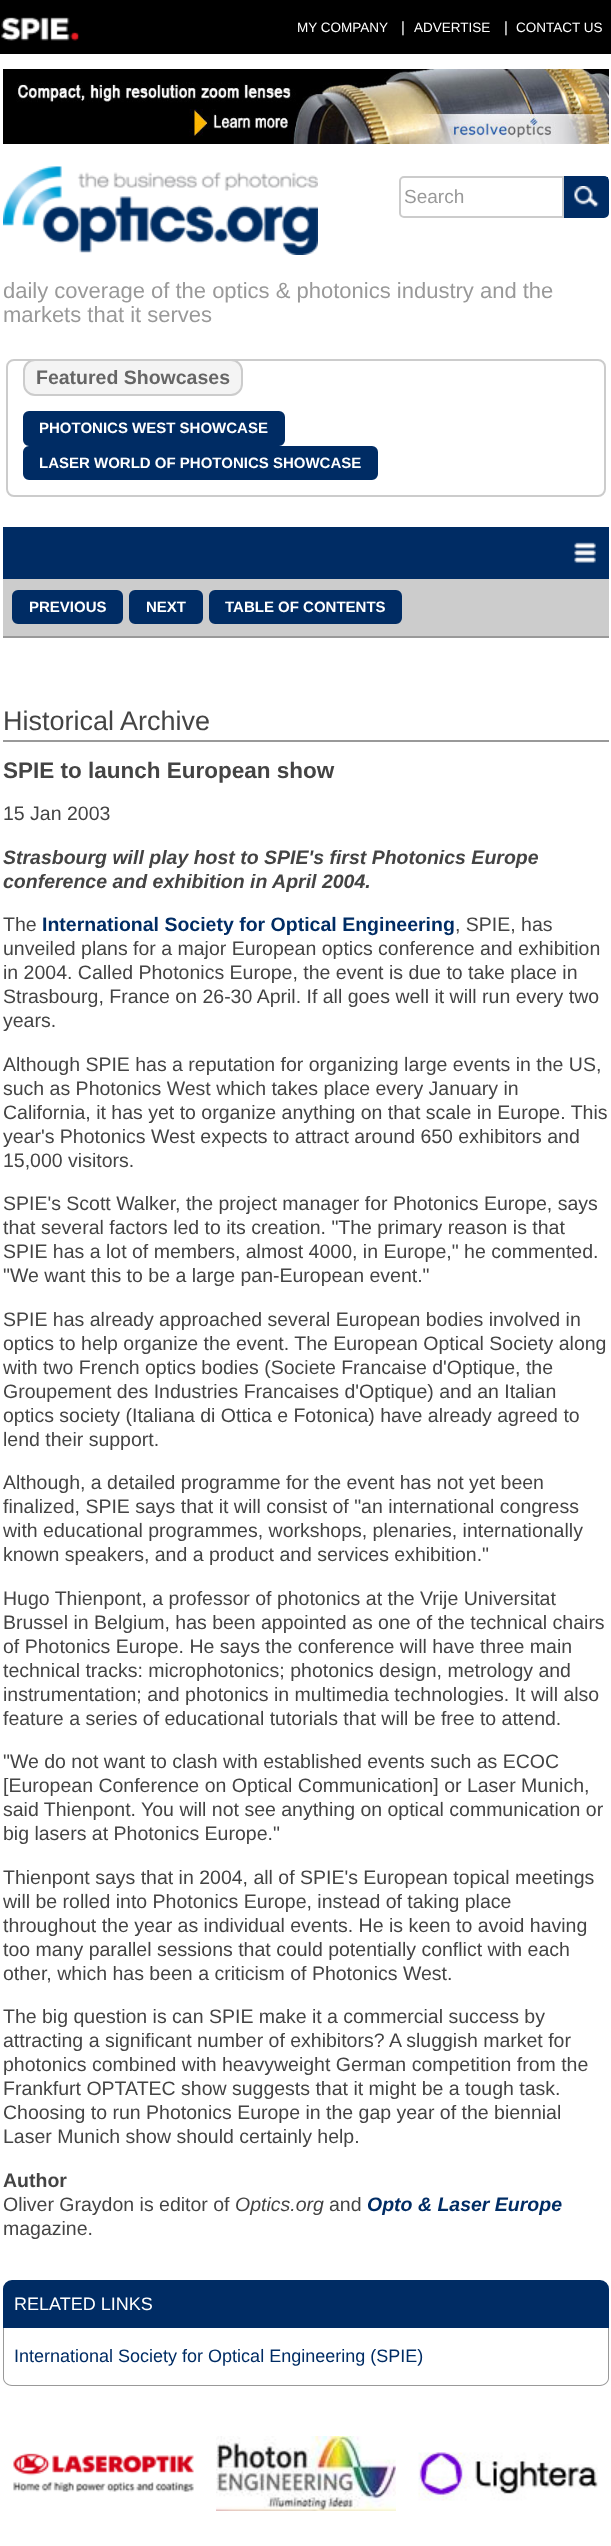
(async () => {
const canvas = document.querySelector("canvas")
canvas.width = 611
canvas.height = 2546
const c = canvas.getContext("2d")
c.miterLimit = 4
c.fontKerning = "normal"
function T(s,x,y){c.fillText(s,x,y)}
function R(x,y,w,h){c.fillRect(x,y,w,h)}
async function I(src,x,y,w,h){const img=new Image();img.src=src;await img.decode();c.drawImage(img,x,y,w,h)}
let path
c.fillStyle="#fff"
R(0,0,611,2546)
c.fillStyle="#000"
R(0,0,611,54)
await I("1.png",1,17,79,24)
c.font="13.5px Liberation Sans"
c.fillStyle="#fff"
T("MY COMPANY",297,32)
c.font="15px Liberation Sans"
T("|",401,32)
c.font="13.5px Liberation Sans"
T("ADVERTISE",414,32)
c.font="15px Liberation Sans"
T("|",504,32)
c.font="13.5px Liberation Sans"
T("CONTACT US",516,32)
await I("2.png",3,69,606,75)
await I("3.png",3,166,315,89)
c.beginPath()
c.roundRect(400,177,163,40,[4,0,0,4])
c.strokeStyle="#ccc"
c.lineWidth=2
c.stroke()
c.font="19px Liberation Sans"
c.fillStyle="#999"
T("Search",404,203)
c.beginPath()
c.roundRect(565,177,43,40,[0,4,4,0])
c.strokeStyle="#002c64"
c.stroke()
c.fillStyle="#002c64"
R(566,177,42,39)
await I("4.png",574,186,25,21)
c.font="22px Liberation Sans"
c.fillStyle="#999"
T("daily coverage of the optics & photonics industry and the",3,298)
T("markets that it serves",3,322)
c.beginPath()
c.roundRect(7,360,598,136,7)
c.strokeStyle="#ccc"
c.stroke()
c.fillStyle="#f4f4f4"
c.beginPath()
c.roundRect(24,360,218,35,11)
c.fill()
c.stroke()
c.font="bold 19.5px Liberation Sans"
c.fillStyle="#666"
T("Featured Showcases",36,384)
c.fillStyle="#002c64"
c.beginPath()
c.roundRect(24,412,260,33,5)
c.fill()
c.strokeStyle="#002c64"
c.stroke()
c.font="bold 15px Liberation Sans"
c.fillStyle="#fff"
T("PHOTONICS WEST SHOWCASE",39,433)
c.fillStyle="#002c64"
c.beginPath()
c.roundRect(24,447,353,32,5)
c.fill()
c.stroke()
c.fillStyle="#fff"
T("LASER WORLD OF PHOTONICS SHOWCASE",39,468)
c.fillStyle="#002c64"
R(3,527,606,52)
await I("5.png",574,542,22,21)
c.fillStyle="#ccc"
R(3,579,606,57)
c.fillStyle="#999"
R(3,636,606,2)
c.fillStyle="#002c64"
c.beginPath()
c.roundRect(13,591,109,32,5)
c.fill()
c.stroke()
c.fillStyle="#fff"
T("PREVIOUS",29,612)
c.fillStyle="#002c64"
c.beginPath()
c.roundRect(130,591,72,32,5)
c.fill()
c.stroke()
c.fillStyle="#fff"
T("NEXT",146,612)
c.fillStyle="#002c64"
c.beginPath()
c.roundRect(210,591,191,32,5)
c.fill()
c.stroke()
c.fillStyle="#fff"
T("TABLE OF CONTENTS",225,612)
c.fillStyle="#999"
R(3,740,606,2)
c.font="27px Liberation Sans"
c.fillStyle="#444"
T("Historical Archive",3,730)
c.font="bold 22.5px Liberation Sans"
T("SPIE to launch European show",3,778)
c.font="19.5px Liberation Sans"
T("15 Jan 2003",3,820)
c.font="italic bold 19.5px Liberation Sans"
T("Strasbourg will play host to SPIE's first Photonics Europe",3,864)
T("conference and exhibition in April 2004.",3,888)
c.font="19.5px Liberation Sans"
T("The",3,931)
c.font="bold 19.5px Liberation Sans"
c.fillStyle="#002c64"
T("International Society for Optical Engineering",42,931)
c.font="19.5px Liberation Sans"
c.fillStyle="#444"
T(", SPIE, has",455,931)
T("unveiled plans for a major European optics conference and exhibition",3,955)
T("in 2004. Called Photonics Europe, the event is due to take place in",3,979)
T("Strasbourg, France on 26-30 April. If all goes well it will run every two",3,1003)
T("years.",3,1027)
T("Although SPIE has a reputation for organizing large events in the US,",3,1071)
T("such as Photonics West which takes place every January in",3,1095)
T("California, it has yet to organize anything on that scale in Europe. This",3,1119)
T("year's Photonics West expects to attract around 650 exhibitors and",3,1143)
T("15,000 visitors.",3,1167)
T("SPIE's Scott Walker, the project manager for Photonics Europe, says",3,1210)
T("that several factors led to its creation. \"The primary reason is that",3,1234)
T("SPIE has a lot of members, almost 4000, in Europe,\" he commented.",3,1258)
T("\"We want this to be a large pan-European event.\"",3,1282)
T("SPIE has already approached several European bodies involved in",3,1326)
T("optics to help organize the event. The European Optical Society along",3,1350)
T("with two French optics bodies (Societe Francaise d'Optique, the",3,1374)
T("Groupement des Industries Francaises d'Optique) and an Italian",3,1398)
T("optics society (Italiana di Ottica e Fotonica) have already agreed to",3,1422)
T("lend their support.",3,1446)
T("Although, a detailed programme for the event has not yet been",3,1489)
T("finalized, SPIE says that it will consist of \"an international congress",3,1513)
T("with educational programmes, workshops, plenaries, internationally",3,1537)
T("known speakers, and a product and services exhibition.\"",3,1561)
T("Hugo Thienpont, a professor of photonics at the Vrije Universitat",3,1605)
T("Brussel in Belgium, has been appointed as one of the technical chairs",3,1629)
T("of Photonics Europe. He says the conference will have three main",3,1653)
T("technical tracks: microphotonics; photonics design, metrology and",3,1677)
T("instrumentation; and photonics in multimedia technologies. It will also",3,1701)
T("feature a series of educational tutorials that will be free to attend.",3,1725)
T("\"We do not want to clash with established events such as ECOC",3,1768)
T("[European Conference on Optical Communication] or Laser Munich,",3,1792)
T("said Thienpont. You will not see anything on optical communication or",3,1816)
T("big lasers at Photonics Europe.\"",3,1840)
T("Thienpont says that in 2004, all of SPIE's European topical meetings",3,1884)
T("will be rolled into Photonics Europe, instead of taking place",3,1908)
T("throughout the year as individual events. He is keen to avoid having",3,1932)
T("too many parallel sessions that could potentially conflict with each",3,1956)
T("other, which has been a criticism of Photonics West.",3,1980)
T("The big question is can SPIE make it a commercial success by",3,2023)
T("attracting a significant number of exhibitors? A sluggish market for",3,2047)
T("photonics combined with heavyweight German competition from the",3,2071)
T("Frankfurt OPTATEC show suggests that it might be a tough task.",3,2095)
T("Choosing to run Photonics Europe in the gap year of the biennial",3,2119)
T("Laser Munich show should certainly help.",3,2143)
c.font="bold 19.5px Liberation Sans"
T("Author",3,2187)
c.font="19.5px Liberation Sans"
T("Oliver Graydon is editor of",3,2211)
c.font="italic 19.5px Liberation Sans"
T("Optics.org",235,2211)
c.font="19.5px Liberation Sans"
T("and",329,2211)
c.font="italic bold 19.5px Liberation Sans"
c.fillStyle="#002c64"
T("Opto & Laser Europe",367,2211)
c.font="19.5px Liberation Sans"
c.fillStyle="#444"
T("magazine.",3,2235)
c.fillStyle="#002c64"
c.beginPath()
c.roundRect(4,2281,604,46,[8,8,0,0])
c.fill()
c.stroke()
c.font="18px Liberation Sans"
c.fillStyle="#fff"
T("RELATED LINKS",14,2310)
c.fillStyle="#999"
path = new Path2D("M3 2328h606v50c0 4-4 8-9 8h-588c-5 0-9-4-9-8zm1 0h604v50c0 4-4 7-8 7h-588c-4 0-8-3-8-7z")
c.fill(path,"evenodd")
c.fillStyle="#002c64"
T("International Society for Optical Engineering (SPIE)",14,2362)
await I("6.png",13,2453,181,39)
await I("7.png",216,2436,180,75)
await I("8.png",418,2452,180,49)
})()
